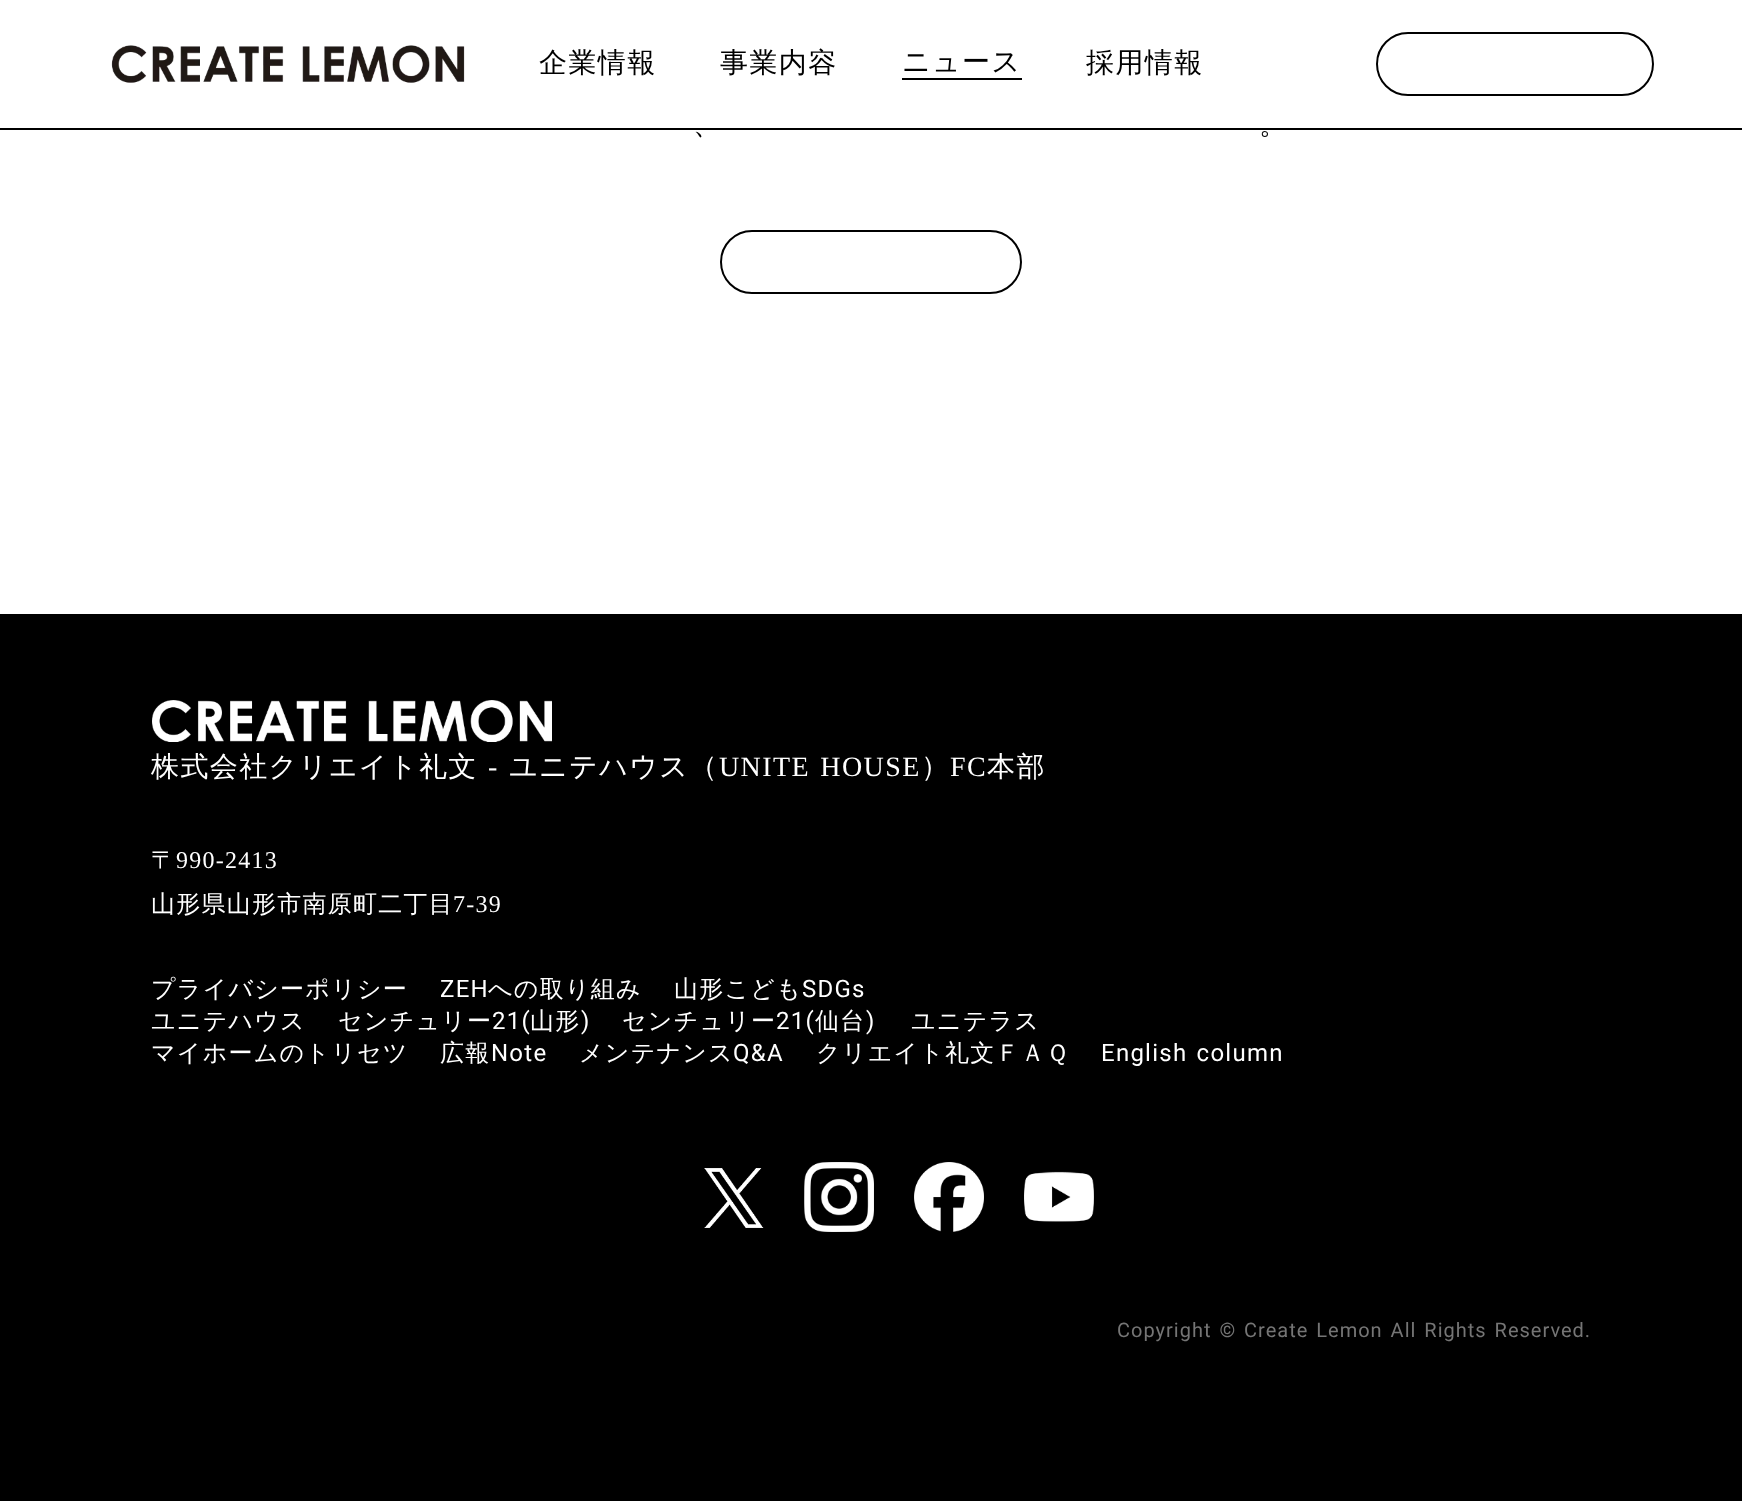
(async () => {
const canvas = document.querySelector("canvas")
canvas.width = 1742
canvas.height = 1501
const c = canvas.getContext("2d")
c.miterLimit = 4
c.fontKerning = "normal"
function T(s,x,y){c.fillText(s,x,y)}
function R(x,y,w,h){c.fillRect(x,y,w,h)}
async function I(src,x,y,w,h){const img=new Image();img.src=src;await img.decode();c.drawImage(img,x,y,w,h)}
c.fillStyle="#000"
R(0,0,1742,1501)
c.fillStyle="#fff"
R(0,0,1742,128)
await I("1.png",111,45,354,38)
c.letterSpacing="1.4px"
c.font="500 28px WenQuanYi Zen Hei"
c.fillStyle="#000"
T("企業情報",539,72)
T("事業内容",720,72)
R(902,78,120,2)
T("ニュース",902,71)
T("採用情報",1086,72)
c.beginPath()
c.roundRect(1377,33,276,62,31)
c.strokeStyle="#000"
c.lineWidth=2
c.stroke()
c.fillStyle="#fff"
R(0,130,1742,484)
c.fillStyle="#000"
T("、",693,134)
T("。",1259,134)
c.beginPath()
c.roundRect(721,231,300,62,31)
c.stroke()
await I("2.png",152,700,400,42)
c.fillStyle="#fff"
T("株式会社クリエイト礼文",151,776)
c.font="28px Liberation Serif"
T("-",488,776)
c.font="500 28px WenQuanYi Zen Hei"
T("ユニテハウス（",509,776)
c.wordSpacing="2px"
c.font="28px Liberation Serif"
T("UNITE HOUSE",719,776)
c.wordSpacing="0px"
c.font="500 28px WenQuanYi Zen Hei"
T("）",921,776)
c.font="28px Liberation Serif"
T("FC",950,776)
c.font="500 28px WenQuanYi Zen Hei"
T("本部",987,776)
c.letterSpacing="1.25px"
c.font="500 24px WenQuanYi Zen Hei"
T("〒",151,868)
c.font="24px Liberation Serif"
T("990-2413",176,868)
c.font="500 24px WenQuanYi Zen Hei"
T("山形県山形市南原町二丁目",151,912)
c.font="24px Liberation Serif"
T("7-39",453,912)
c.font="500 24px WenQuanYi Zen Hei"
T("プライバシーポリシー",151,997)
c.font="24px Roboto"
T("ZEH",440,997)
c.font="500 24px WenQuanYi Zen Hei"
T("への取り組み",488,997)
T("山形こども",674,997)
c.font="24px Roboto"
T("SDGs",802,997)
c.font="500 24px WenQuanYi Zen Hei"
T("ユニテハウス",151,1029)
T("センチュリー",338,1029)
c.font="24px Roboto"
T("21(",492,1029)
c.font="500 24px WenQuanYi Zen Hei"
T("山形",530,1029)
c.font="24px Roboto"
T(")",581,1029)
c.font="500 24px WenQuanYi Zen Hei"
T("センチュリー",622,1029)
c.font="24px Roboto"
T("21(",776,1029)
c.font="500 24px WenQuanYi Zen Hei"
T("仙台",815,1029)
c.font="24px Roboto"
T(")",866,1029)
c.font="500 24px WenQuanYi Zen Hei"
T("ユニテラス",911,1029)
T("マイホームのトリセツ",151,1061)
T("広報",440,1061)
c.font="24px Roboto"
T("Note",491,1061)
c.font="500 24px WenQuanYi Zen Hei"
T("メンテナンス",579,1061)
c.font="24px Roboto"
T("Q&A",733,1061)
c.font="500 24px WenQuanYi Zen Hei"
T("クリエイト礼文ＦＡＱ",816,1061)
c.wordSpacing="2px"
c.font="24px Roboto"
T("English column",1101,1061)
await I("3.png",704,1168,60,60)
await I("4.png",804,1162,70,70)
await I("5.png",914,1162,70,70)
await I("6.png",1024,1171,70,51)
c.letterSpacing="1px"
c.font="20px Roboto"
c.fillStyle="#757575"
T("Copyright © Create Lemon All Rights Reserved.",1117,1337)
})()
